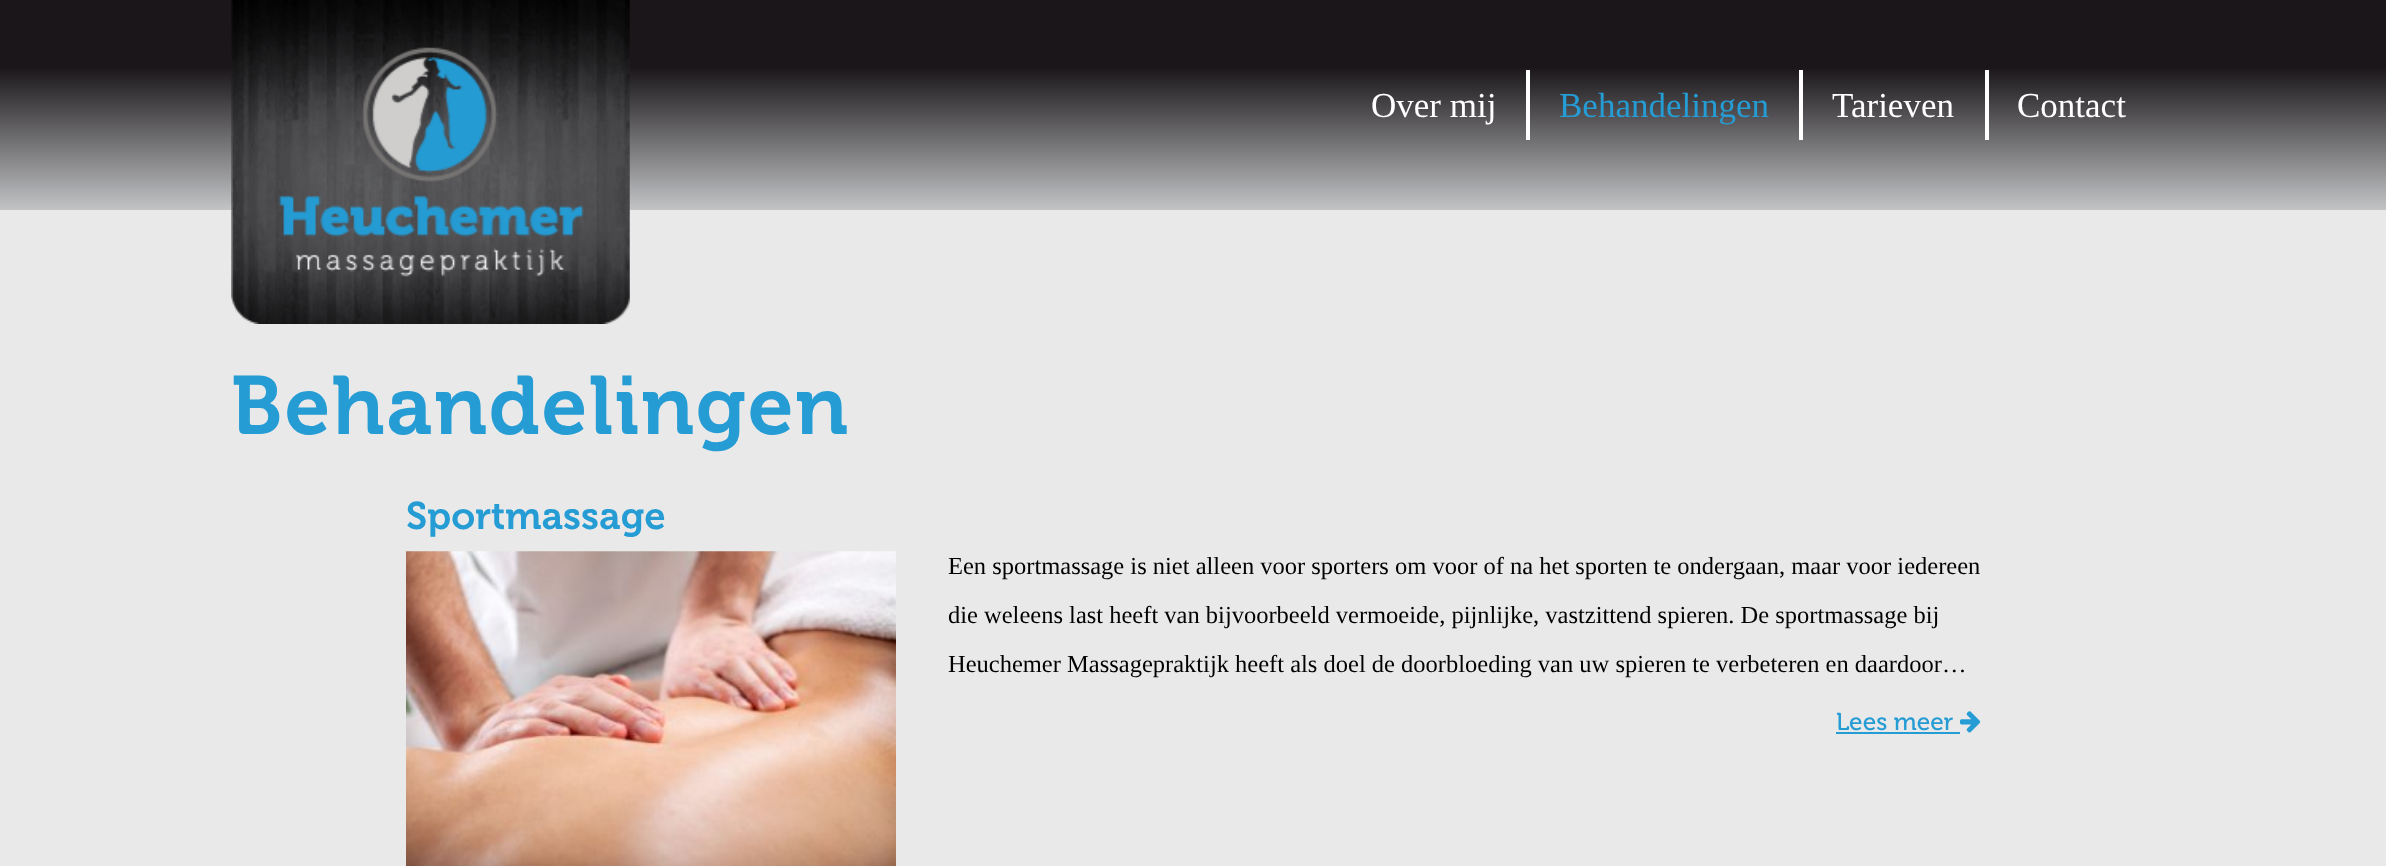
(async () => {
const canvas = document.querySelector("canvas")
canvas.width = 2386
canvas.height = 866
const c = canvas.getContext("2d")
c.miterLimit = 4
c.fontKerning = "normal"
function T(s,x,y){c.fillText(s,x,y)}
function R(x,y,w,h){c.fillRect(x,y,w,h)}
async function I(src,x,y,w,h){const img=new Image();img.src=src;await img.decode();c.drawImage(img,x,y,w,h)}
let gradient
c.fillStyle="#e9e9ea"
R(0,0,2386,866)
gradient = c.createLinearGradient(1194,0,1194,210)
gradient.addColorStop(0,"#1a161a")
gradient.addColorStop(.32,"#1a161a")
gradient.addColorStop(1,"#c2c4c6")
c.fillStyle = gradient
R(0,0,2386,210)
await I("1.png",231,0,399,324)
c.fillStyle="#fff"
R(1526,70,4,70)
c.font="35px Liberation Serif"
T("Over mij",1371,117)
R(1799,70,4,70)
c.fillStyle="#259cd3"
T("Behandelingen",1559,117)
c.fillStyle="#fff"
R(1985,70,4,70)
T("Tarieven",1832,117)
T("Contact",2017,117)
c.letterSpacing="1.75px"
c.font="600 82.25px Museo"
c.fillStyle="#259cd3"
T("Behandelingen",231,434)
c.letterSpacing="0px"
c.font="600 38.5px Museo"
T("Sportmassage",406,529)
await I("2.png",406,551,490,315)
c.font="24.5px Liberation Serif"
c.fillStyle="#010101"
T("Een sportmassage is niet alleen voor sporters om voor of na het sporten te ondergaan, maar voor iedereen",948,574)
T("die weleens last heeft van bijvoorbeeld vermoeide, pijnlijke, vastzittend spieren. De sportmassage bij",948,623)
T("Heuchemer Massagepraktijk heeft als doel de doorbloeding van uw spieren te verbeteren en daardoor…",948,672)
c.font="24.5px Museo"
c.fillStyle="#259cd3"
T("Lees meer",1836,730)
R(1836,732,124,2)
await I("3.png",1960,711,21,22)
})()
